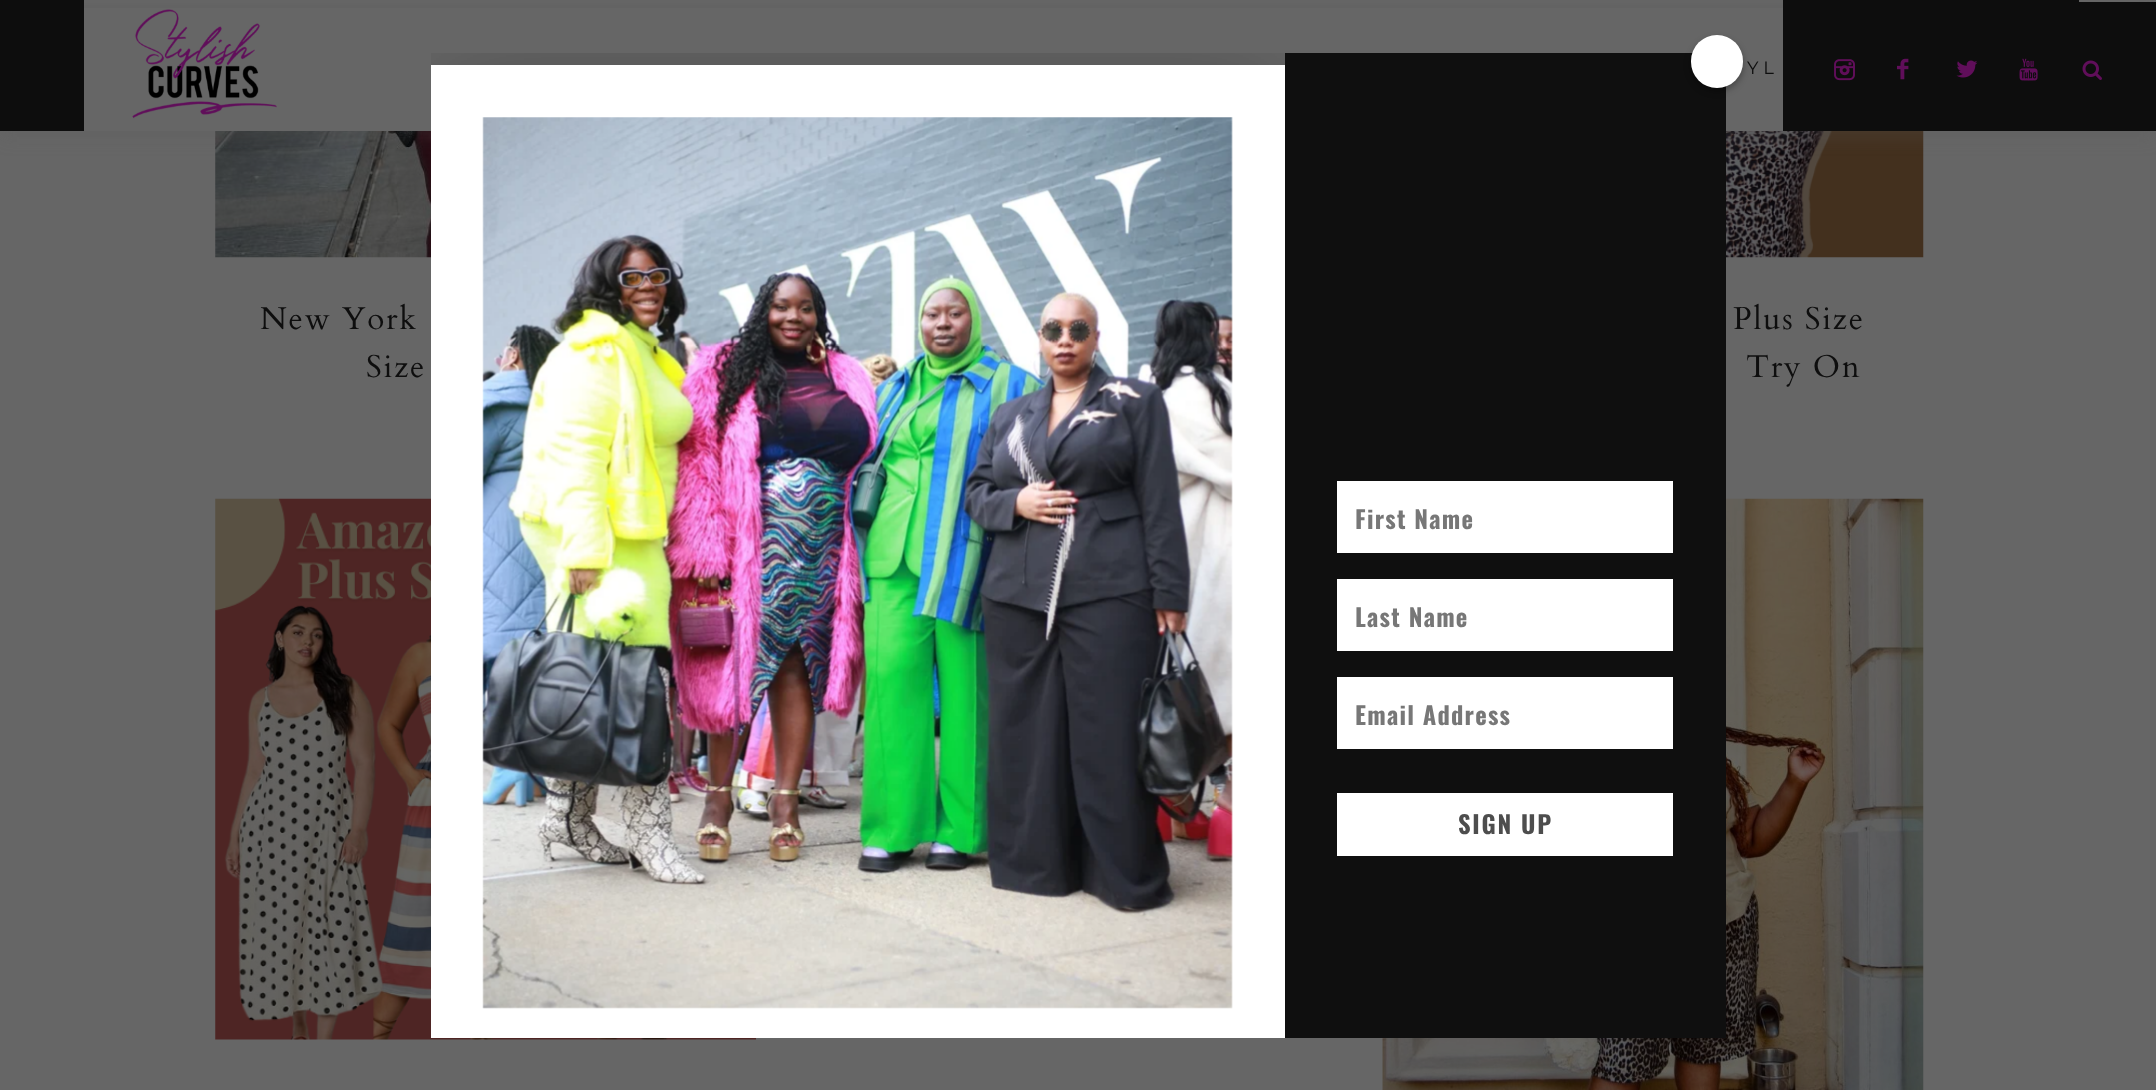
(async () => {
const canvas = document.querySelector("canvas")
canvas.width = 2156
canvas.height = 1090
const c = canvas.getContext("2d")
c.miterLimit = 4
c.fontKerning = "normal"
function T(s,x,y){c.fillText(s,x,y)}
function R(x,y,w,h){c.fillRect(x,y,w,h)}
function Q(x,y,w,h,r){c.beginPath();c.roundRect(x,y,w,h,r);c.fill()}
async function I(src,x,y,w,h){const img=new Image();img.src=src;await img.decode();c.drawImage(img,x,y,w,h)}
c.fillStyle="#666"
R(0,0,2156,1090)
await I("7.png",215,131,216,127)
await I("8.png",1726,131,198,127)
c.fillStyle="#56565640"
c.filter="blur(9px)"
c.beginPath()
c.rect(0,5,2156,132)
c.fill()
c.filter="none"
c.fillStyle="#666"
R(84,8,2069,123)
c.fillStyle="#0d0d0d"
R(0,0,84,131)
await I("1.png",132,9,145,110)
c.letterSpacing="5px"
c.font="18px Montserrat"
c.fillStyle="#0e0e0e"
T("YL",1747,74)
c.fillStyle="#0d0d0d"
R(1783,0,296,131)
await I("2.png",1834,59,21,22)
await I("3.png",1897,58,12,22)
await I("4.png",1956,60,22,18)
await I("5.png",2019,58,19,23)
R(2079,2,77,129)
await I("6.png",2082,60,20,20)
c.letterSpacing="1.75px"
c.font="31.5px Cardo"
c.fillStyle="#0e0e0e"
T("New York",260,329)
T("Size",366,377)
T("Plus Size",1733,329)
T("Try On",1746,377)
await I("9.png",215,498,541,542)
await I("10.png",1382,498,542,592)
c.save()
c.beginPath()
c.rect(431,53,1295,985)
c.clip()
c.fillStyle="#00000033"
c.filter="blur(52.5px)"
c.beginPath()
c.rect(431,65,854,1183)
c.fill()
c.filter="none"
c.restore()
c.fillStyle="#0f0f0f"
R(1285,53,441,985)
c.fillStyle="#00000057"
c.filter="blur(3.5px)"
c.beginPath()
c.roundRect(1691,39,52,52,26)
c.fill()
c.filter="none"
c.fillStyle="#fff"
Q(1691,35,52,53,26)
R(431,65,854,973)
await I("11.png",482,117,751,892)
R(1337,481,336,72)
c.letterSpacing="1.25px"
c.font="bold 24.5px Oswald"
c.fillStyle="#777"
T("First Name",1355,529)
c.fillStyle="#fff"
R(1337,579,336,72)
c.fillStyle="#777"
T("Last Name",1355,627)
c.fillStyle="#fff"
R(1337,677,336,72)
c.fillStyle="#777"
T("Email Address",1355,725)
c.fillStyle="#fff"
R(1337,793,336,63)
c.letterSpacing="1.75px"
c.fillStyle="#4d4d4d"
T("SIGN UP",1458,834)
})()
